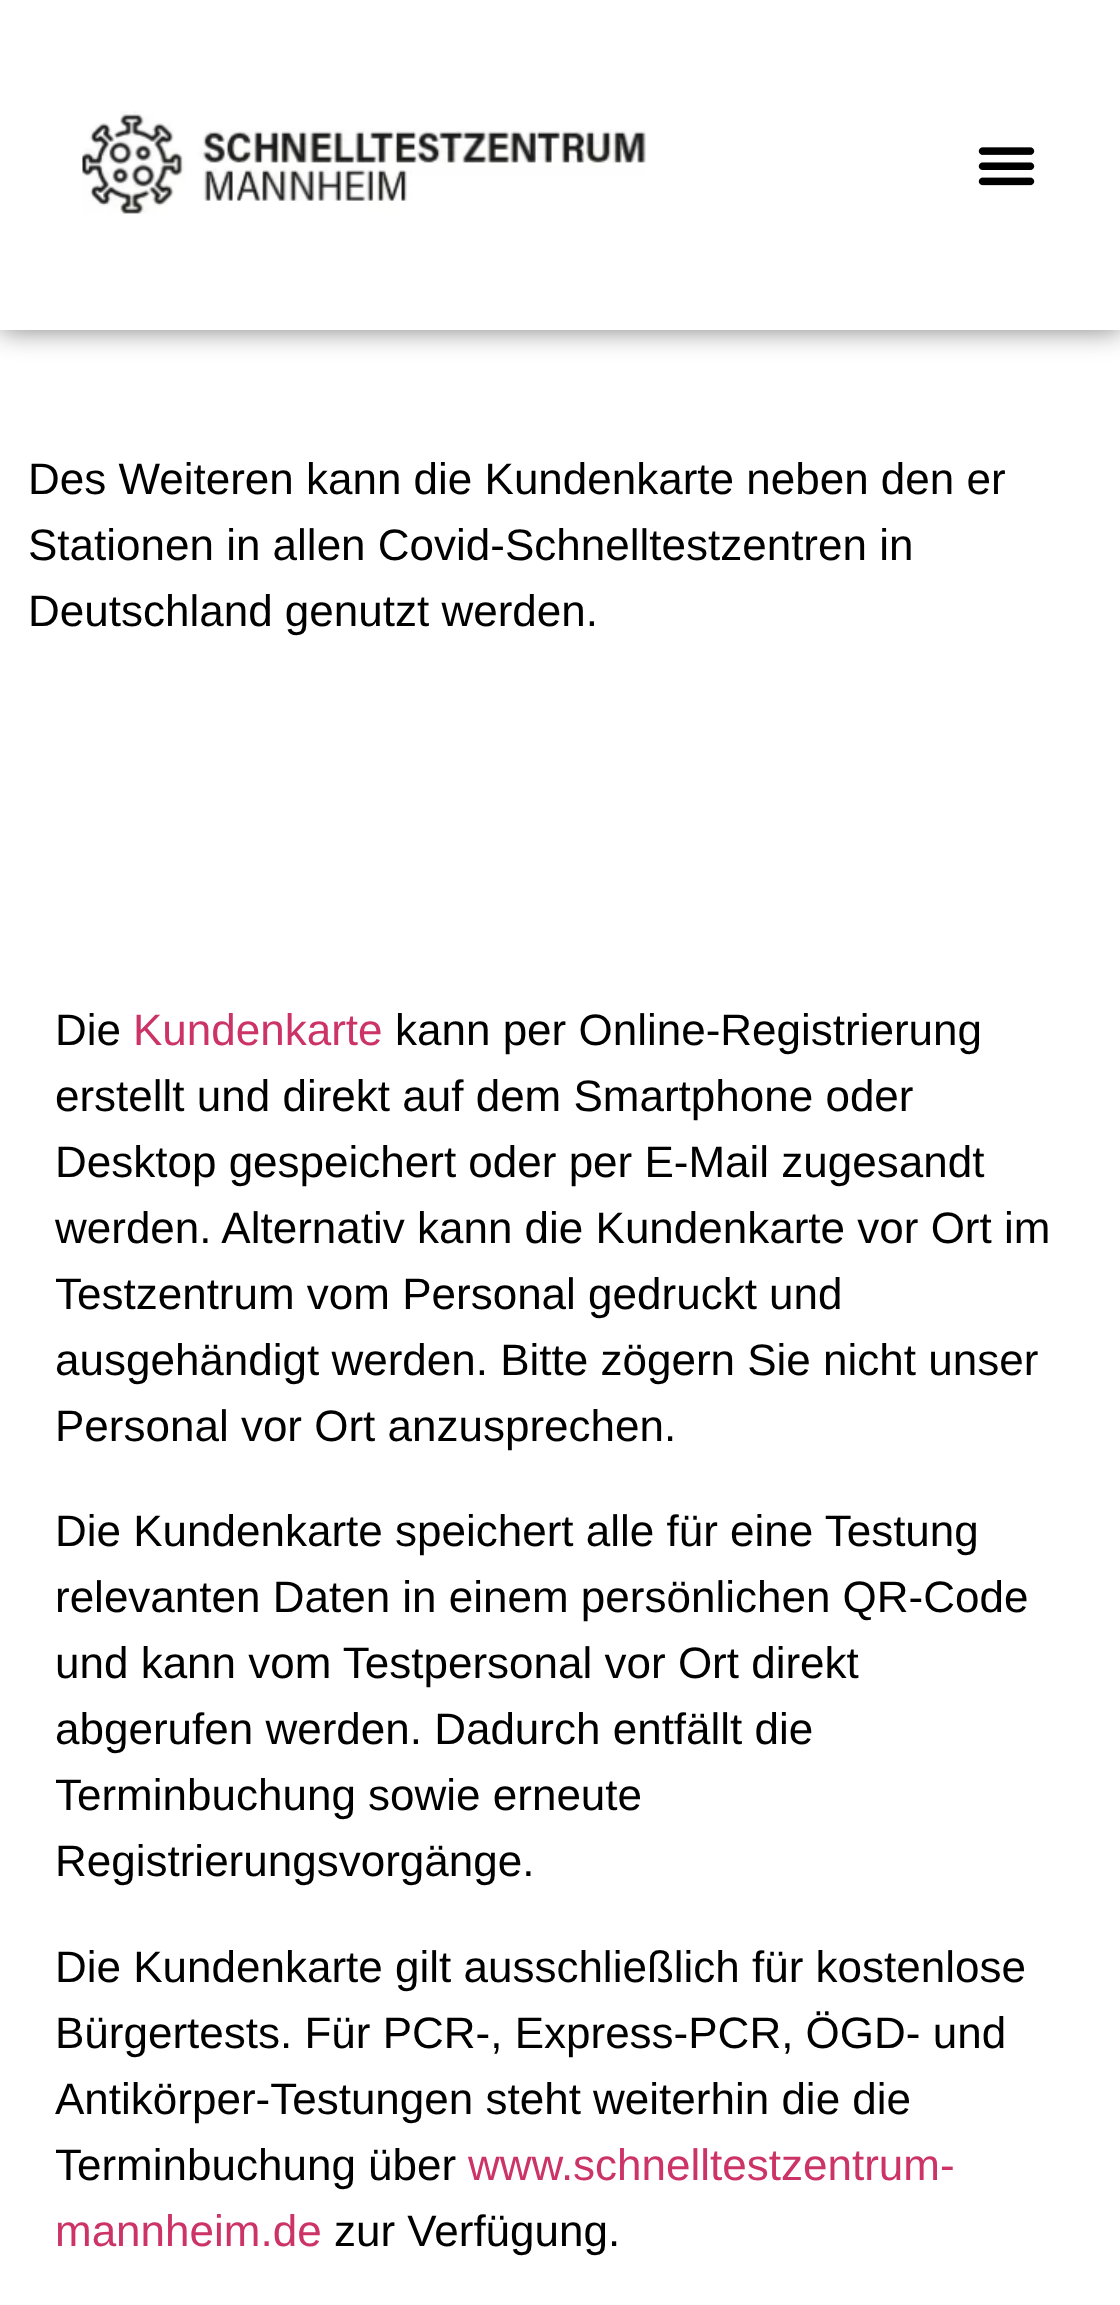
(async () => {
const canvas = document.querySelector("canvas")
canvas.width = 1120
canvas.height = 2305
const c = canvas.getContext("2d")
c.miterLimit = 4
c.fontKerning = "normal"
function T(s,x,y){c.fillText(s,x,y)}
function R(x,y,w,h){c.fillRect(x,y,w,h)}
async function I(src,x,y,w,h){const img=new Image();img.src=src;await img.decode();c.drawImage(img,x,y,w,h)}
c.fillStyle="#fff"
R(0,0,1120,2305)
c.fillStyle="#00000080"
c.filter="blur(14px)"
c.beginPath()
c.rect(0,0,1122,330)
c.fill()
c.filter="none"
c.fillStyle="#fff"
R(0,0,1120,330)
await I("1.png",82,111,564,103)
await I("2.png",978,147,57,39)
c.font="44px Liberation Sans"
c.fillStyle="#000"
T("Des Weiteren kann die Kundenkarte neben den er",28,494)
T("Stationen in allen Covid-Schnelltestzentren in",28,560)
T("Deutschland genutzt werden.",28,626)
T("Die",55,1045)
c.fillStyle="#c36"
T("Kundenkarte",133,1045)
c.fillStyle="#000"
T("kann per Online-Registrierung",395,1045)
T("erstellt und direkt auf dem Smartphone oder",55,1111)
T("Desktop gespeichert oder per E-Mail zugesandt",55,1177)
T("werden. Alternativ kann die Kundenkarte vor Ort im",55,1243)
T("Testzentrum vom Personal gedruckt und",55,1309)
T("ausgehändigt werden. Bitte zögern Sie nicht unser",55,1375)
T("Personal vor Ort anzusprechen.",55,1441)
T("Die Kundenkarte speichert alle für eine Testung",55,1546)
T("relevanten Daten in einem persönlichen QR-Code",55,1612)
T("und kann vom Testpersonal vor Ort direkt",55,1678)
T("abgerufen werden. Dadurch entfällt die",55,1744)
T("Terminbuchung sowie erneute",55,1810)
T("Registrierungsvorgänge.",55,1876)
T("Die Kundenkarte gilt ausschließlich für kostenlose",55,1982)
T("Bürgertests. Für PCR-, Express-PCR, ÖGD- und",55,2048)
T("Antikörper-Testungen steht weiterhin die die",55,2114)
T("Terminbuchung über",55,2180)
c.fillStyle="#c36"
T("www.schnelltestzentrum-",468,2180)
T("mannheim.de",55,2246)
c.fillStyle="#000"
T("zur Verfügung.",334,2246)
})()
